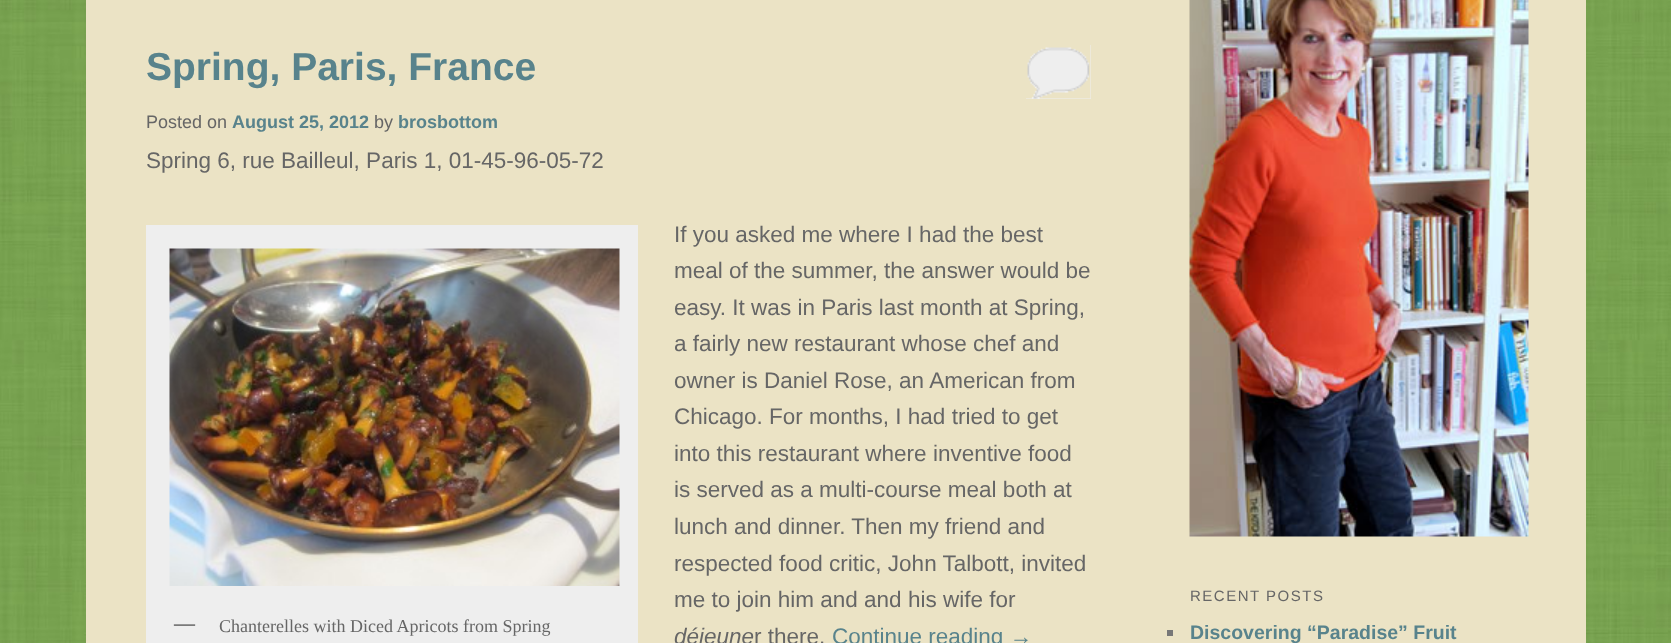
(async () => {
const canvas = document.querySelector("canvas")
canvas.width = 1671
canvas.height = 643
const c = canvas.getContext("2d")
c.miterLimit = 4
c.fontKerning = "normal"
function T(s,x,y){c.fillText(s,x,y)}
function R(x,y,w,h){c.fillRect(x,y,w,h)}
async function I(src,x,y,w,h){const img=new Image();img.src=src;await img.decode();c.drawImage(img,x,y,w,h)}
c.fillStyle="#fff"
R(0,0,1671,643)
await I("1.png",0,0,1671,643)
c.fillStyle="#ebe3c5"
R(86,0,1500,643)
c.font="bold 39px Liberation Sans"
c.fillStyle="#58838c"
T("Spring, Paris, France",146,80)
c.fillStyle="#eee"
R(1026,45,65,54)
await I("2.png",1026,45,65,54)
c.font="18px Liberation Sans"
c.fillStyle="#666"
T("Posted on",146,128)
c.font="bold 18px Liberation Sans"
c.fillStyle="#58838c"
T("August 25, 2012",232,128)
c.font="18px Liberation Sans"
c.fillStyle="#666"
T("by",374,128)
c.font="bold 18px Liberation Sans"
c.fillStyle="#58838c"
T("brosbottom",398,128)
c.font="22.5px Liberation Sans"
c.fillStyle="#666"
T("Spring 6, rue Bailleul, Paris 1, 01-45-96-05-72",146,168)
c.fillStyle="#eee"
R(146,225,492,418)
await I("3.png",169,248,451,338)
c.font="bold 21px Liberation Serif"
c.fillStyle="#666"
T("—",174,630)
c.font="18px Liberation Serif"
T("Chanterelles with Diced Apricots from Spring",219,632)
c.font="22.5px Liberation Sans"
T("If you asked me where I had the best",674,242)
T("meal of the summer, the answer would be",674,278)
T("easy. It was in Paris last month at Spring,",674,315)
T("a fairly new restaurant whose chef and",674,351)
T("owner is Daniel Rose, an American from",674,388)
T("Chicago. For months, I had tried to get",674,424)
T("into this restaurant where inventive food",674,461)
T("is served as a multi-course meal both at",674,497)
T("lunch and dinner. Then my friend and",674,534)
T("respected food critic, John Talbott, invited",674,571)
T("me to join him and and his wife for",674,607)
c.font="italic 22.5px Liberation Sans"
T("déjeune",674,644)
c.font="22.5px Liberation Sans"
T("r there.",754,644)
c.fillStyle="#58838c"
T("Continue reading →",832,644)
await I("4.png",1189,0,340,537)
c.letterSpacing="1.5px"
c.font="15px Liberation Sans"
c.fillStyle="#666"
T("RECENT POSTS",1190,601)
c.fillStyle="#777"
R(1167,630,6,6)
c.letterSpacing="0px"
c.font="bold 19.5px Liberation Sans"
c.fillStyle="#58838c"
T("Discovering “Paradise” Fruit",1190,639)
})()
